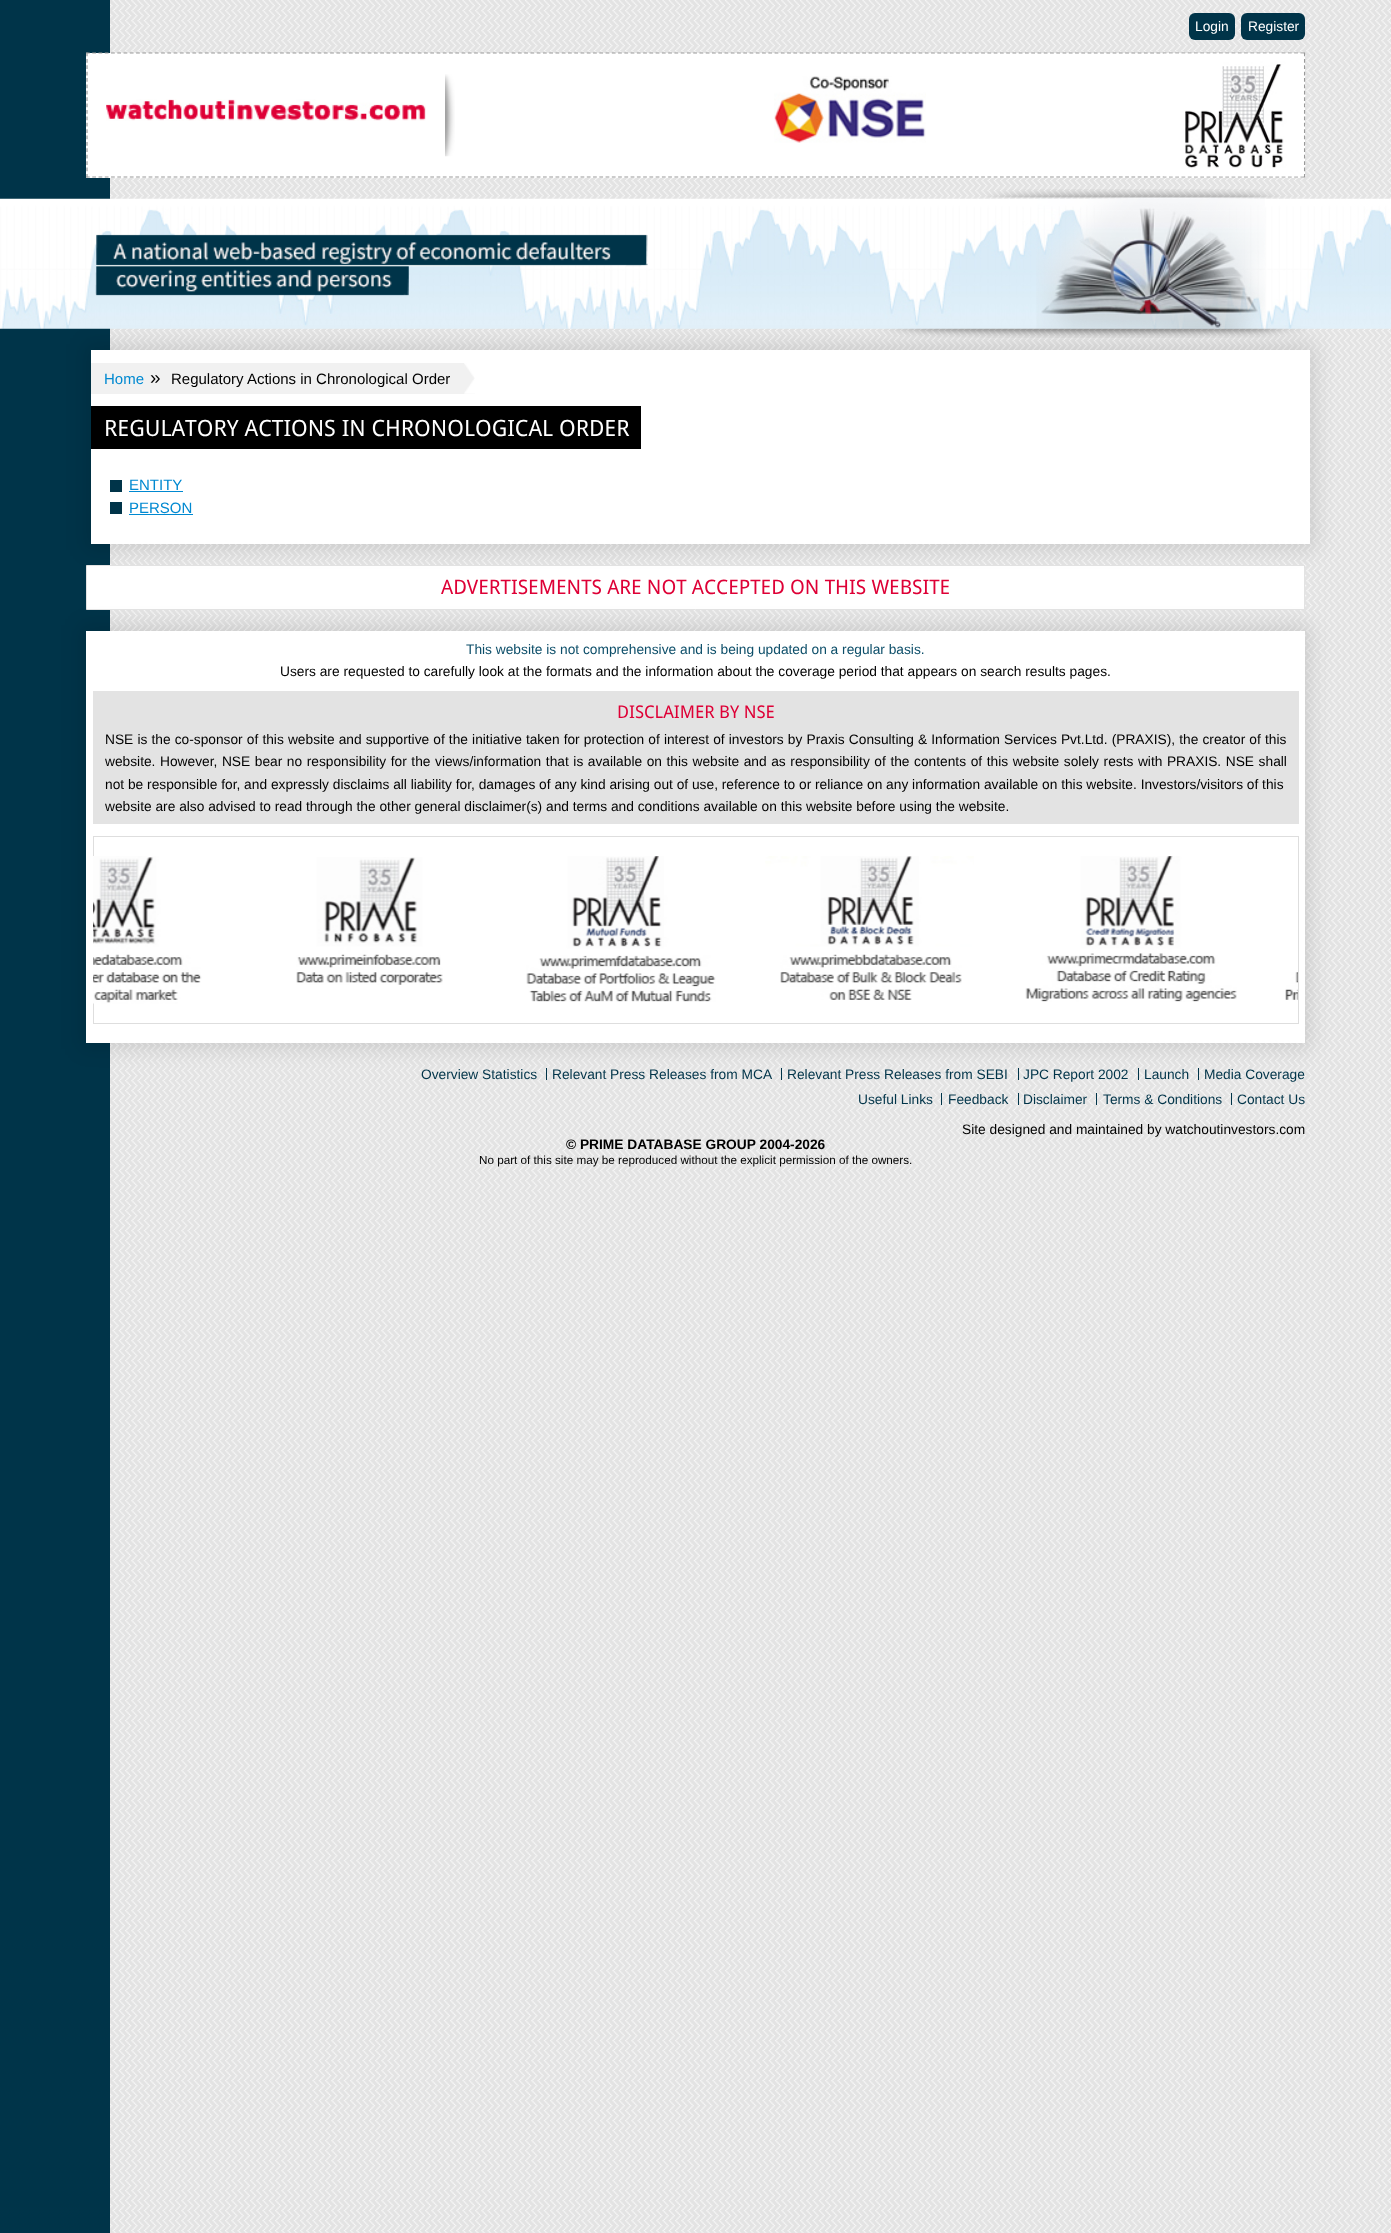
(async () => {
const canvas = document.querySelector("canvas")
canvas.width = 1391
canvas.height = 2233
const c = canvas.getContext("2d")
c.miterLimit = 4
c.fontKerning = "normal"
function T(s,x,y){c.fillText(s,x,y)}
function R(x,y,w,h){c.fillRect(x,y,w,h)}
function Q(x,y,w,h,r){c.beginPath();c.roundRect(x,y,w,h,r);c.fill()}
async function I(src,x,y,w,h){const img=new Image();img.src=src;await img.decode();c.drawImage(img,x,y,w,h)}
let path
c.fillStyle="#fff"
R(0,0,1391,2233)
await I("1.png",110,0,1281,2233)
c.fillStyle="#003449"
R(0,0,110,2233)
Q(1189,13,46,27,6)
c.font="13.75px Liberation Sans"
c.fillStyle="#fff"
T("Login",1195,31)
c.fillStyle="#003449"
Q(1241,13,64,27,6)
c.fillStyle="#fff"
T("Register",1248,31)
R(86,53,1219,125)
path = new Path2D("M86 53h1219")
c.strokeStyle="#999"
c.lineWidth=1.2
c.setLineDash([3.75,2.51])
c.stroke(path)
path = new Path2D("M1304.5 52.5v125")
c.setLineDash([3.75,2.64])
c.stroke(path)
path = new Path2D("M86 177h1219")
c.setLineDash([3.75,2.51])
c.stroke(path)
path = new Path2D("M87 52.5v125")
c.setLineDash([3.75,2.64])
c.stroke(path)
await I("2.png",445,74,10,83)
await I("3.png",106,99,320,22)
await I("4.png",774,76,152,67)
await I("5.png",1164,53,140,124)
await I("6.png",0,198,1391,131)
await I("7.png",95,189,1210,149)
c.beginPath()
c.rect(86.5,565.5,1218,44)
c.fill()
c.strokeStyle="#e3e3e3"
c.lineWidth=1
c.setLineDash([])
c.stroke()
c.fillStyle="#0000001a"
c.filter="blur(9.5px)"
c.beginPath()
c.rect(85,344,1231,206)
c.fill()
c.filter="none"
c.fillStyle="#fff"
R(91,350,1219,194)
c.fillStyle="#f1f1f1"
R(91,363,384,31)
await I("8.png",464,363,11,31)
c.font="15px Liberation Sans"
c.fillStyle="#0089d1"
T("Home",104,384)
c.font="19px Liberation Sans"
c.fillStyle="#000"
T("»",150,384)
c.font="15px Liberation Sans"
T("Regulatory Actions in Chronological Order",171,384)
R(91,406,550,43)
c.font="22.5px Droid Sans"
c.fillStyle="#fff"
T("REGULATORY ACTIONS IN CHRONOLOGICAL ORDER",104,436)
c.fillStyle="#003449"
R(110,480,12,12)
c.font="15px Liberation Sans"
c.fillStyle="#0089d1"
T("ENTITY",129,490)
R(129,491,54,1)
c.fillStyle="#003449"
R(110,502,12,12)
c.fillStyle="#0089d1"
T("PERSON",129,513)
R(129,514,64,1)
c.font="20px Droid Sans"
c.fillStyle="#de0036"
T("ADVERTISEMENTS ARE NOT ACCEPTED ON THIS WEBSITE",441,594)
c.fillStyle="#0000001a"
c.filter="blur(9.5px)"
c.beginPath()
c.rect(80,625,1231,424)
c.fill()
c.filter="none"
c.fillStyle="#fff"
R(86,631,1219,412)
c.font="13.75px Liberation Sans"
c.fillStyle="#0c4e69"
T("This website is not comprehensive and is being updated on a regular basis.",466,654)
c.fillStyle="#000"
T("Users are requested to carefully look at the formats and the information about the coverage period that appears on search results pages.",280,676)
c.fillStyle="#e3e3e3"
R(93,691,1206,133)
c.font="17.5px Droid Sans"
c.fillStyle="#de0036"
T("DISCLAIMER BY NSE",617,718)
c.wordSpacing="0.3px"
c.font="13.75px Liberation Sans"
c.fillStyle="#000"
T("NSE is the co-sponsor of this website and supportive of the initiative taken for protection of interest of investors by Praxis Consulting & Information Services Pvt.Ltd. (PRAXIS), the creator of this",105,744)
c.wordSpacing="0.75px"
T("website. However, NSE bear no responsibility for the views/information that is available on this website and as responsibility of the contents of this website solely rests with PRAXIS. NSE shall",105,766)
c.wordSpacing="0px"
T("not be responsible for, and expressly disclaims all liability for, damages of any kind arising out of use, reference to or reliance on any information available on this website. Investors/visitors of this",105,789)
T("website are also advised to read through the other general disclaimer(s) and terms and conditions available on this website before using the website.",105,811)
c.strokeStyle="#dedede"
c.strokeRect(93.5,836.5,1205,187)
await I("9.png",93,856,109,148)
await I("10.png",296,857,147,128)
await I("11.png",526,856,190,146)
await I("12.png",765,856,209,144)
await I("13.png",1025,856,212,146)
await I("14.png",1285,972,13,28)
c.fillStyle="#003449"
T("Overview Statistics",421,1079)
R(546,1068,1,12)
T("Relevant Press Releases from MCA",552,1079)
R(781,1068,1,12)
T("Relevant Press Releases from SEBI",787,1079)
R(1018,1068,1,12)
T("JPC Report 2002",1023,1079)
R(1138,1068,1,12)
T("Launch",1144,1079)
R(1198,1068,1,12)
T("Media Coverage",1204,1079)
T("Useful Links",858,1104)
R(941,1093,1,12)
T("Feedback",948,1104)
R(1018,1093,1,12)
T("Disclaimer",1023,1104)
R(1096,1093,1,12)
T("Terms & Conditions",1103,1104)
R(1231,1093,1,12)
T("Contact Us",1237,1104)
c.fillStyle="#000"
T("Site designed and maintained by watchoutinvestors.com",962,1134)
c.font="bold 13.75px Liberation Sans"
T("© PRIME DATABASE GROUP 2004-2026",566,1149)
c.font="11.7px Liberation Sans"
T("No part of this site may be reproduced without the explicit permission of the owners.",479,1164)
})()
